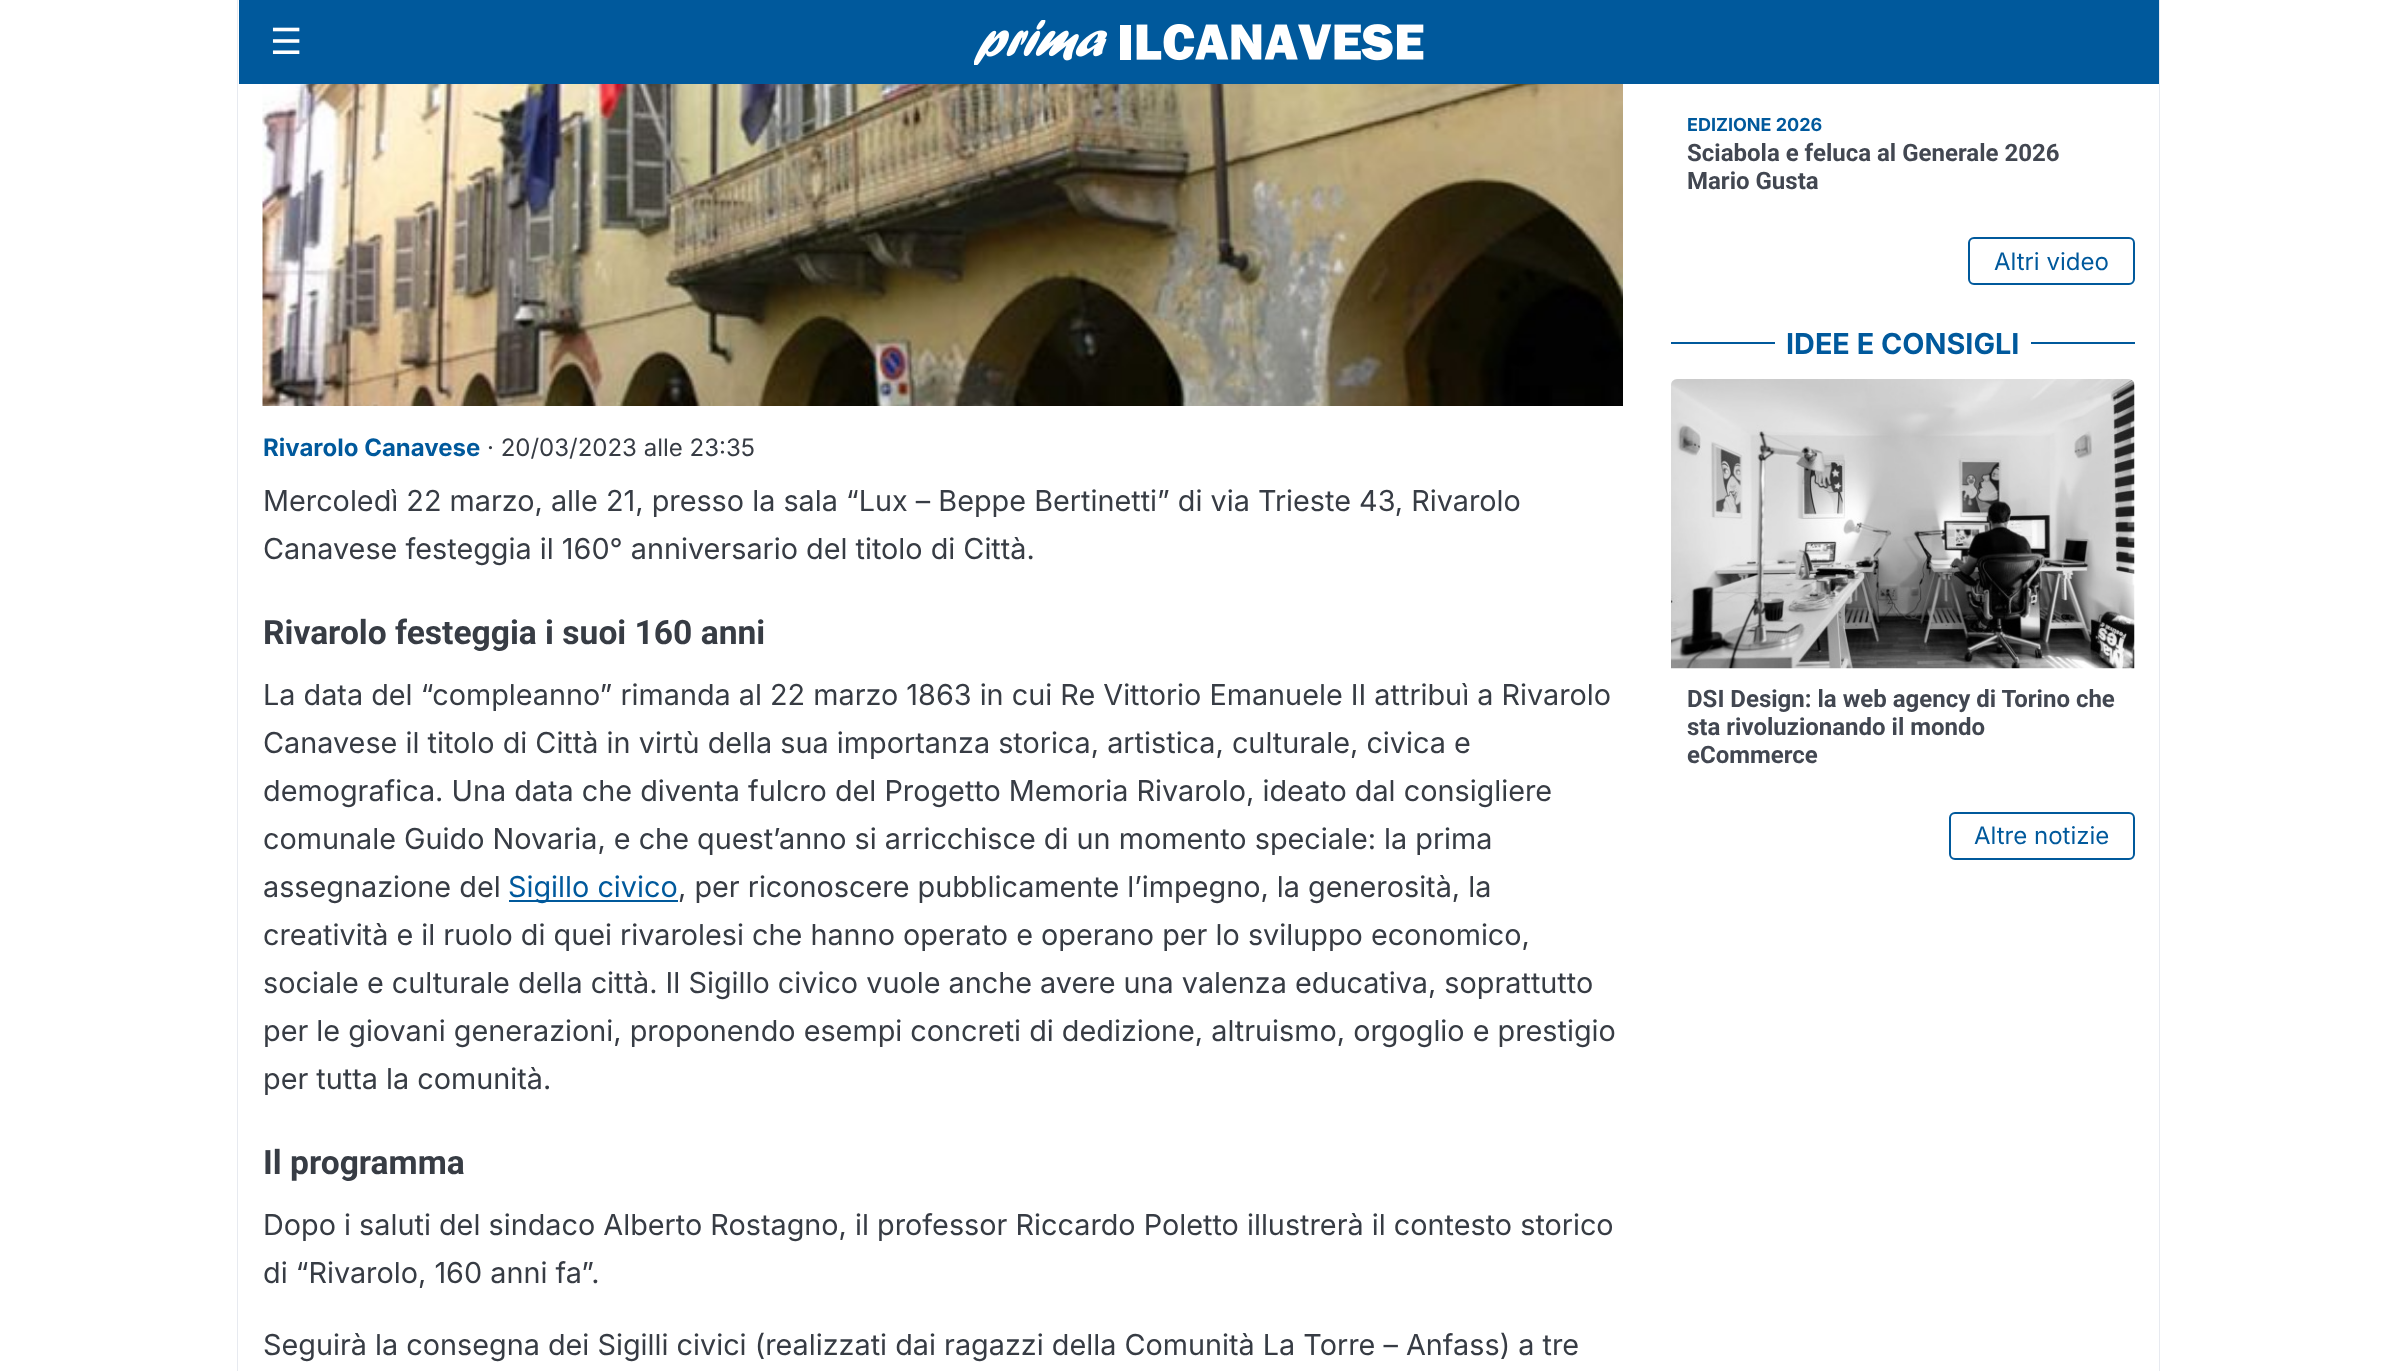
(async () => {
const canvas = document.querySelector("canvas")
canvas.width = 2397
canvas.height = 1371
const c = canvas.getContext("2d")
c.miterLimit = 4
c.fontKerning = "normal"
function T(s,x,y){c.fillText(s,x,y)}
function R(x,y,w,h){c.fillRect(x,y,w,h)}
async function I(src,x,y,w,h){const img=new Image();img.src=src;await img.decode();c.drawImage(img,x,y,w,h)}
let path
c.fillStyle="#fff"
R(0,0,2397,1371)
c.fillStyle="#e7eaf0"
path = new Path2D("M240 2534h1920v-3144h-2v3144z")
c.fill(path)
c.fillStyle="#00599c"
R(239,0,1920,84)
c.font="36px DejaVu Sans"
c.fillStyle="#fff"
T("☰",270,54)
await I("1.png",974,20,450,45)
c.fillStyle="#e7eaf0"
path = new Path2D("M237-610v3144h1920h-1919v-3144z")
c.fill(path)
await I("2.png",262,84,1361,322)
c.font="bold 24px Inter"
c.fillStyle="#00599c"
T("Rivarolo Canavese",263,456)
c.font="24px Inter"
c.fillStyle="#373c44"
T("· 20/03/2023 alle 23:35",487,456)
c.font="28.8px Inter"
T("Mercoledì 22 marzo, alle 21, presso la sala “Lux – Beppe Bertinetti” di via Trieste 43, Rivarolo",263,511)
T("Canavese festeggia il 160° anniversario del titolo di Città.",263,559)
c.font="bold 33.6px Roboto"
T("Rivarolo festeggia i suoi 160 anni",263,644)
c.font="28.8px Inter"
T("La data del “compleanno” rimanda al 22 marzo 1863 in cui Re Vittorio Emanuele II attribuì a Rivarolo",263,705)
T("Canavese il titolo di Città in virtù della sua importanza storica, artistica, culturale, civica e",263,753)
T("demografica. Una data che diventa fulcro del Progetto Memoria Rivarolo, ideato dal consigliere",263,801)
T("comunale Guido Novaria, e che quest’anno si arricchisce di un momento speciale: la prima",263,849)
T("assegnazione del",263,897)
c.fillStyle="#00599c"
R(509,900,169,2)
T("Sigillo civico",508,897)
c.fillStyle="#373c44"
T(", per riconoscere pubblicamente l’impegno, la generosità, la",678,897)
T("creatività e il ruolo di quei rivarolesi che hanno operato e operano per lo sviluppo economico,",263,945)
T("sociale e culturale della città. Il Sigillo civico vuole anche avere una valenza educativa, soprattutto",263,993)
T("per le giovani generazioni, proponendo esempi concreti di dedizione, altruismo, orgoglio e prestigio",263,1041)
T("per tutta la comunità.",263,1089)
c.font="bold 33.6px Roboto"
T("Il programma",263,1174)
c.font="28.8px Inter"
T("Dopo i saluti del sindaco Alberto Rostagno, il professor Riccardo Poletto illustrerà il contesto storico",263,1235)
T("di “Rivarolo, 160 anni fa”.",263,1283)
T("Seguirà la consegna dei Sigilli civici (realizzati dai ragazzi della Comunità La Torre – Anfass) a tre",263,1355)
c.fillStyle="#fff"
R(2158,84,1,1287)
c.font="bold 18px Inter"
c.fillStyle="#00599c"
T("EDIZIONE 2026",1687,131)
c.font="bold 24px Roboto"
c.fillStyle="#424751"
T("Sciabola e feluca al Generale 2026",1687,161)
T("Mario Gusta",1687,189)
c.beginPath()
c.roundRect(1969,238,165,46,5)
c.strokeStyle="#00599c"
c.lineWidth=2
c.stroke()
c.font="24px Inter"
c.fillStyle="#00599c"
T("Altri video",1994,270)
R(1671,342,464,2)
c.fillStyle="#fff"
R(1775,342,256,2)
c.font="bold 28.8px Inter"
c.fillStyle="#00599c"
T("IDEE E CONSIGLI",1786,354)
await I("3.png",1671,379,464,290)
c.font="bold 24px Roboto"
c.fillStyle="#424751"
T("DSI Design: la web agency di Torino che",1687,707)
T("sta rivoluzionando il mondo",1687,735)
T("eCommerce",1687,763)
c.beginPath()
c.roundRect(1950,813,184,46,5)
c.stroke()
c.font="24px Inter"
c.fillStyle="#00599c"
T("Altre notizie",1974,844)
})()
